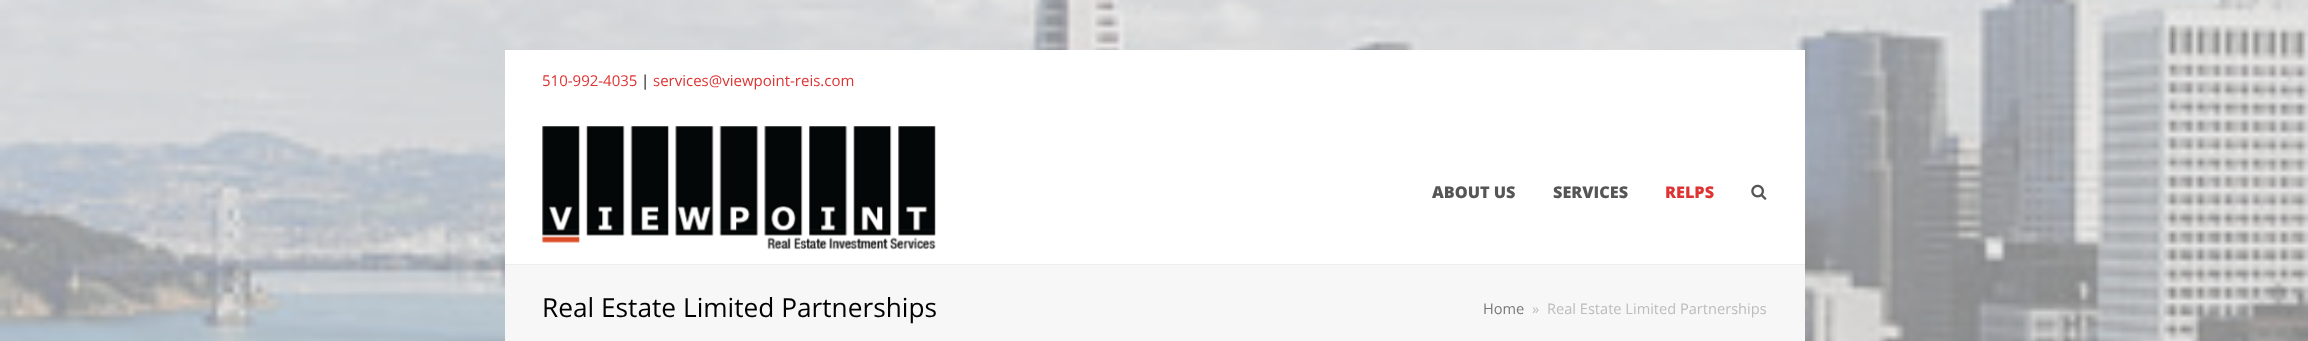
(async () => {
const canvas = document.querySelector("canvas")
canvas.width = 2308
canvas.height = 341
const c = canvas.getContext("2d")
c.miterLimit = 4
c.fontKerning = "normal"
function T(s,x,y){c.fillText(s,x,y)}
function R(x,y,w,h){c.fillRect(x,y,w,h)}
async function I(src,x,y,w,h){const img=new Image();img.src=src;await img.decode();c.drawImage(img,x,y,w,h)}
c.fillStyle="#ddd"
R(0,0,2308,341)
await I("1.png",0,0,2308,341)
c.fillStyle="#fff"
R(505,50,1300,214)
c.font="15px Open Sans"
c.fillStyle="#d33"
T("510-992-4035",542,86)
c.fillStyle="#000"
T("|",641,86)
c.fillStyle="#d33"
T("services@viewpoint-reis.com",653,86)
await I("2.png",542,126,394,124)
c.font="800 16.25px Open Sans"
c.fillStyle="#555"
T("ABOUT US",1432,198)
T("SERVICES",1553,198)
c.fillStyle="#d33"
T("RELPS",1665,198)
await I("3.png",1751,184,16,16)
c.fillStyle="#f7f7f7"
R(505,265,1300,76)
c.fillStyle="#eee"
R(505,264,1300,1)
c.font="26.25px Open Sans"
c.fillStyle="#000"
T("Real Estate Limited Partnerships",542,317)
c.font="14.6px Open Sans"
c.fillStyle="#777"
T("Home",1483,314)
c.fillStyle="#bcbcbc"
T("»",1532,314)
T("Real Estate Limited Partnerships",1547,314)
})()
